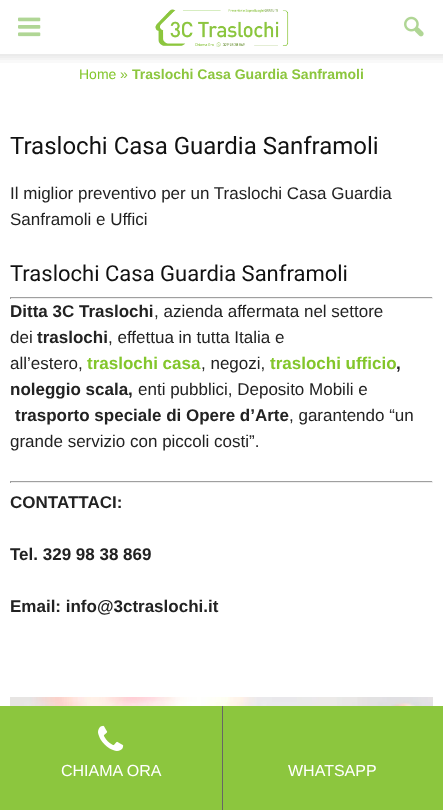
(async () => {
const canvas = document.querySelector("canvas")
canvas.width = 443
canvas.height = 810
const c = canvas.getContext("2d")
c.miterLimit = 4
c.fontKerning = "normal"
function T(s,x,y){c.fillText(s,x,y)}
function R(x,y,w,h){c.fillRect(x,y,w,h)}
async function I(src,x,y,w,h){const img=new Image();img.src=src;await img.decode();c.drawImage(img,x,y,w,h)}
c.fillStyle="#fff"
R(0,0,443,810)
await I("1.png",18,17,23,20)
await I("2.png",155,9,134,38)
await I("3.png",404,16,20,21)
await I("4.png",0,54,443,9)
c.font="14px Liberation Sans"
c.fillStyle="#83c62b"
T("Home",79,79)
c.fillStyle="#8cc63e"
T("»",120,79)
c.font="bold 14px Liberation Sans"
T("Traslochi Casa Guardia Sanframoli",132,79)
c.font="24px Roboto"
c.fillStyle="#111"
T("Traslochi Casa Guardia Sanframoli",10,154)
c.font="17px Liberation Sans"
c.fillStyle="#222"
T("Il miglior preventivo per un Traslochi Casa Guardia",10,199)
T("Sanframoli e Uffici",10,225)
c.font="22px Roboto"
c.fillStyle="#111"
T("Traslochi Casa Guardia Sanframoli",10,281)
c.fillStyle="#9f9f9f"
R(10,297,423,1)
c.fillStyle="#eee"
R(432,297,1,2)
R(10,298,423,1)
c.fillStyle="#9f9f9f"
R(10,297,1,2)
c.font="bold 17px Liberation Sans"
c.fillStyle="#222"
T("Ditta 3C Traslochi",10,317)
c.font="17px Liberation Sans"
T(", azienda affermata nel settore",154,317)
T("dei",10,343)
c.font="bold 17px Liberation Sans"
T("traslochi",37,343)
c.font="17px Liberation Sans"
T(", effettua in tutta Italia e",108,343)
T("all’estero,",10,369)
c.font="bold 17px Liberation Sans"
c.fillStyle="#83c62b"
T("traslochi casa",87,369)
c.font="17px Liberation Sans"
c.fillStyle="#222"
T(", negozi,",201,369)
c.font="bold 17px Liberation Sans"
c.fillStyle="#83c62b"
T("traslochi ufficio",270,369)
c.fillStyle="#222"
T(",",396,369)
T("noleggio scala,",10,395)
c.font="17px Liberation Sans"
T("enti pubblici, Deposito Mobili e",138,395)
c.font="bold 17px Liberation Sans"
T("trasporto speciale di Opere d’Arte",15,421)
c.font="17px Liberation Sans"
T(", garantendo “un",289,421)
T("grande servizio con piccoli costi”.",10,447)
c.fillStyle="#9f9f9f"
R(10,481,423,1)
c.fillStyle="#eee"
R(432,481,1,2)
R(10,482,423,1)
c.fillStyle="#9f9f9f"
R(10,481,1,2)
c.font="bold 17px Liberation Sans"
c.fillStyle="#222"
T("CONTATTACI:",10,508)
T("Tel. 329 98 38 869",10,560)
T("Email: info@3ctraslochi.it",10,612)
await I("5.png",10,697,423,9)
c.fillStyle="#8cc63e"
R(0,706,443,104)
await I("6.png",98,725,26,26)
c.font="16px Liberation Sans"
c.fillStyle="#fff"
T("CHIAMA ORA",61,776)
c.fillStyle="#666"
R(222,706,1,104)
c.fillStyle="#fff"
T("WHATSAPP",288,776)
})()
